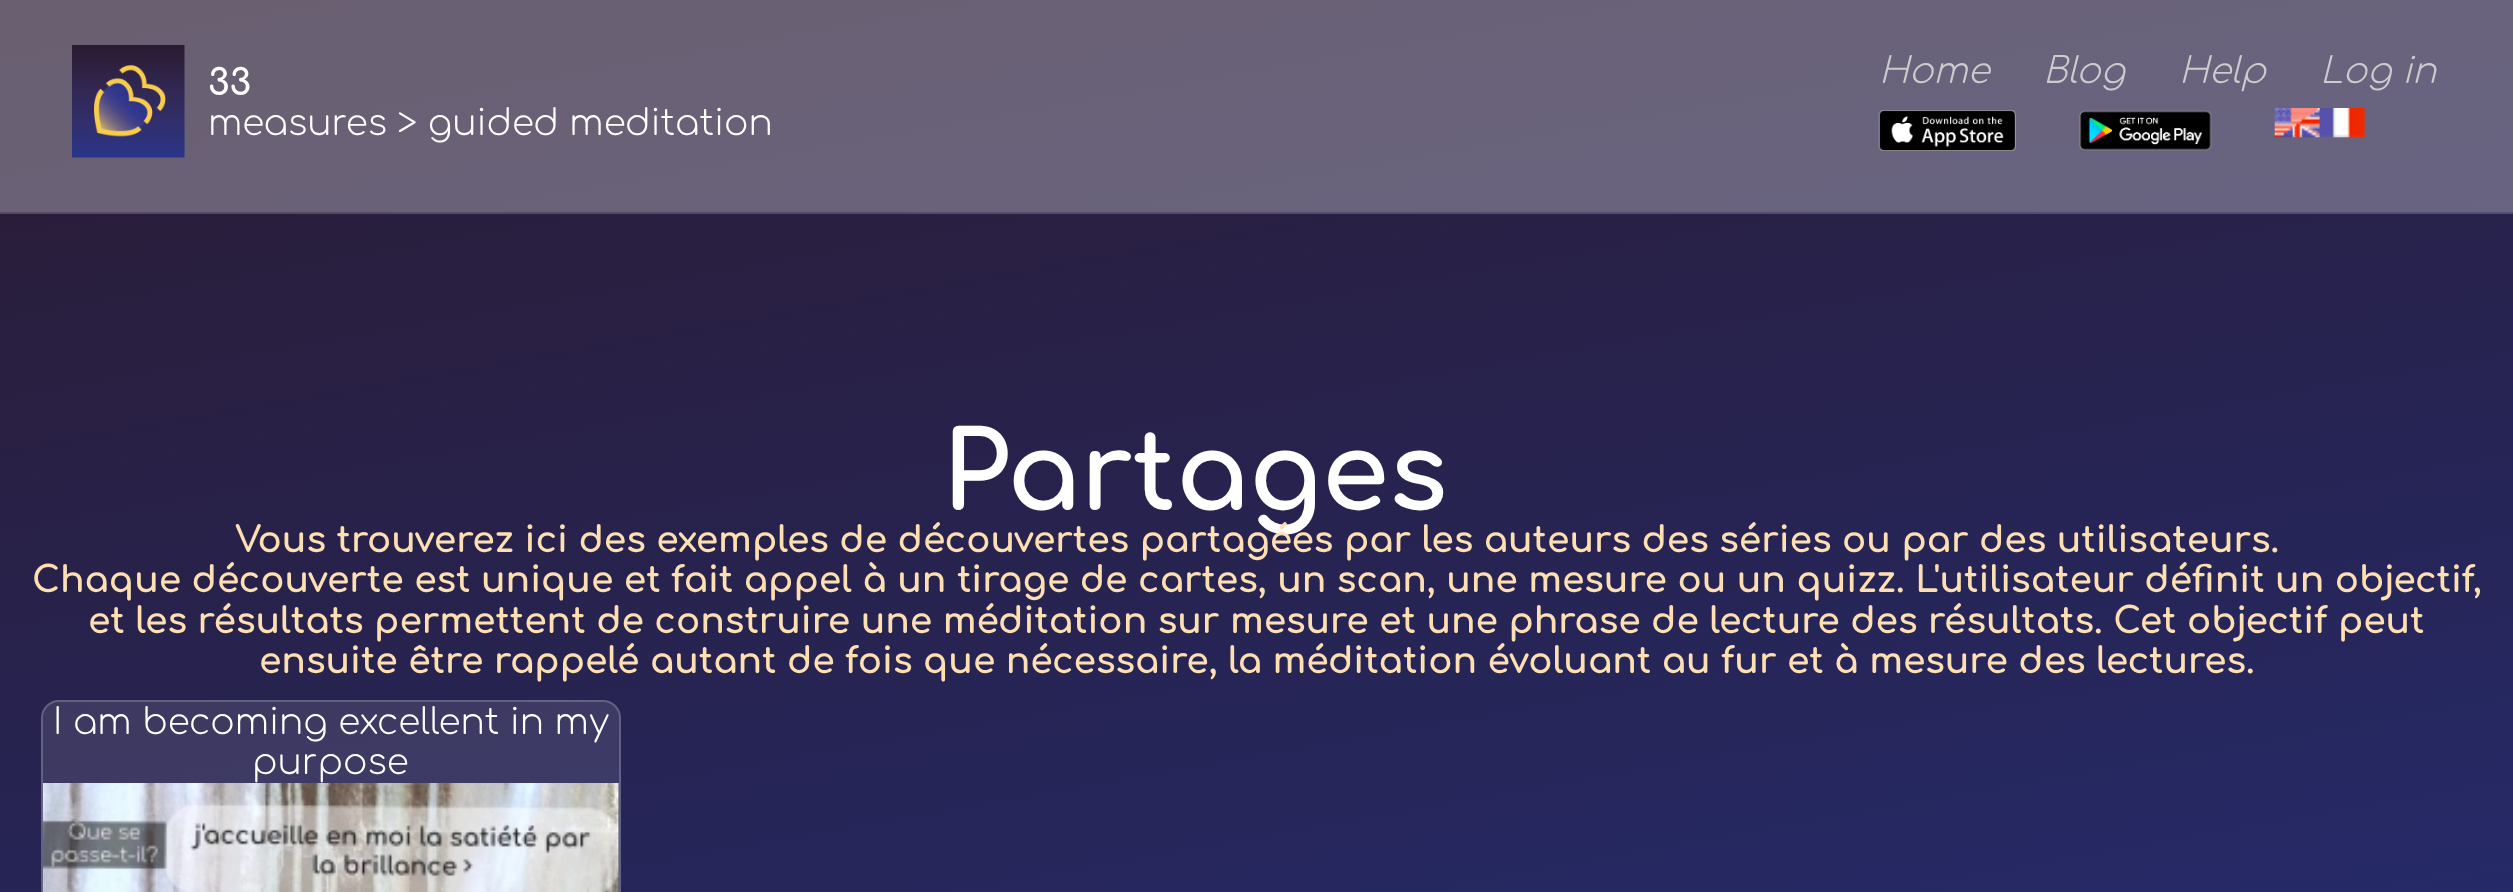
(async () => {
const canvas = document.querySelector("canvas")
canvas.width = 2513
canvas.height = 892
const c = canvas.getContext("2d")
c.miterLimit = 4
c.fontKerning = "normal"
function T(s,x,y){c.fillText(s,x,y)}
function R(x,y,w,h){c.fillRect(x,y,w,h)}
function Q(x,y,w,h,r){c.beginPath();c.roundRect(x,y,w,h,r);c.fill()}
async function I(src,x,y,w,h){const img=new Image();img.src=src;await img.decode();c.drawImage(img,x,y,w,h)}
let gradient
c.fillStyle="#fff"
R(0,0,2513,892)
gradient = c.createLinearGradient(1098,-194,1415,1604)
gradient.addColorStop(0,"#2a1b32")
gradient.addColorStop(1,"#232f7c")
c.fillStyle = gradient
R(0,214,2513,678)
gradient = c.createLinearGradient(1098,-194,1415,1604)
gradient.addColorStop(0,"#55495b")
gradient.addColorStop(1,"#4f5996")
c.fillStyle = gradient
R(0,212,2513,2)
gradient = c.createLinearGradient(1098,-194,1415,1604)
gradient.addColorStop(0,"#6a5f70")
gradient.addColorStop(1,"#656da3")
c.fillStyle = gradient
R(0,0,2513,212)
await I("1.png",72,45,113,113)
c.font="bold 36px Comfortaa"
c.fillStyle="#fff"
T("33",208,95)
c.font="300 36px Comfortaa"
T("measures > guided meditation",208,135)
c.font="italic 300 36px Comfortaa"
c.fillStyle="#ccc"
T("Home",1879,83)
T("Blog",2043,83)
T("Help",2179,83)
T("Log in",2320,83)
await I("2.png",1878,110,138,41)
await I("3.png",2079,110,133,41)
await I("4.png",2274,108,46,30)
await I("5.png",2319,108,46,30)
c.font="bold 108px Comfortaa"
c.fillStyle="#fff"
T("Partages",942,510)
c.font="bold 36px Comfortaa"
c.fillStyle="#fddfb1"
T("Vous trouverez ici des exemples de découvertes partagées par les auteurs des séries ou par des utilisateurs.",235,552)
T("Chaque découverte est unique et fait appel à un tirage de cartes, un scan, une mesure ou un quizz. L'utilisateur définit un objectif,",32,592)
T("et les résultats permettent de construire une méditation sur mesure et une phrase de lecture des résultats. Cet objectif peut",88,633)
T("ensuite être rappelé autant de fois que nécessaire, la méditation évoluant au fur et à mesure des lectures.",259,673)
c.fillStyle="#ffffff1a"
Q(41,700,580,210,18)
c.beginPath()
c.roundRect(42,701,578,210,17)
c.strokeStyle="#ffffff33"
c.lineWidth=2
c.stroke()
c.font="300 36px Comfortaa"
c.fillStyle="#fff"
T("I am becoming excellent in my",53,734)
T("purpose",252,774)
await I("6.png",42,783,577,109)
})()
